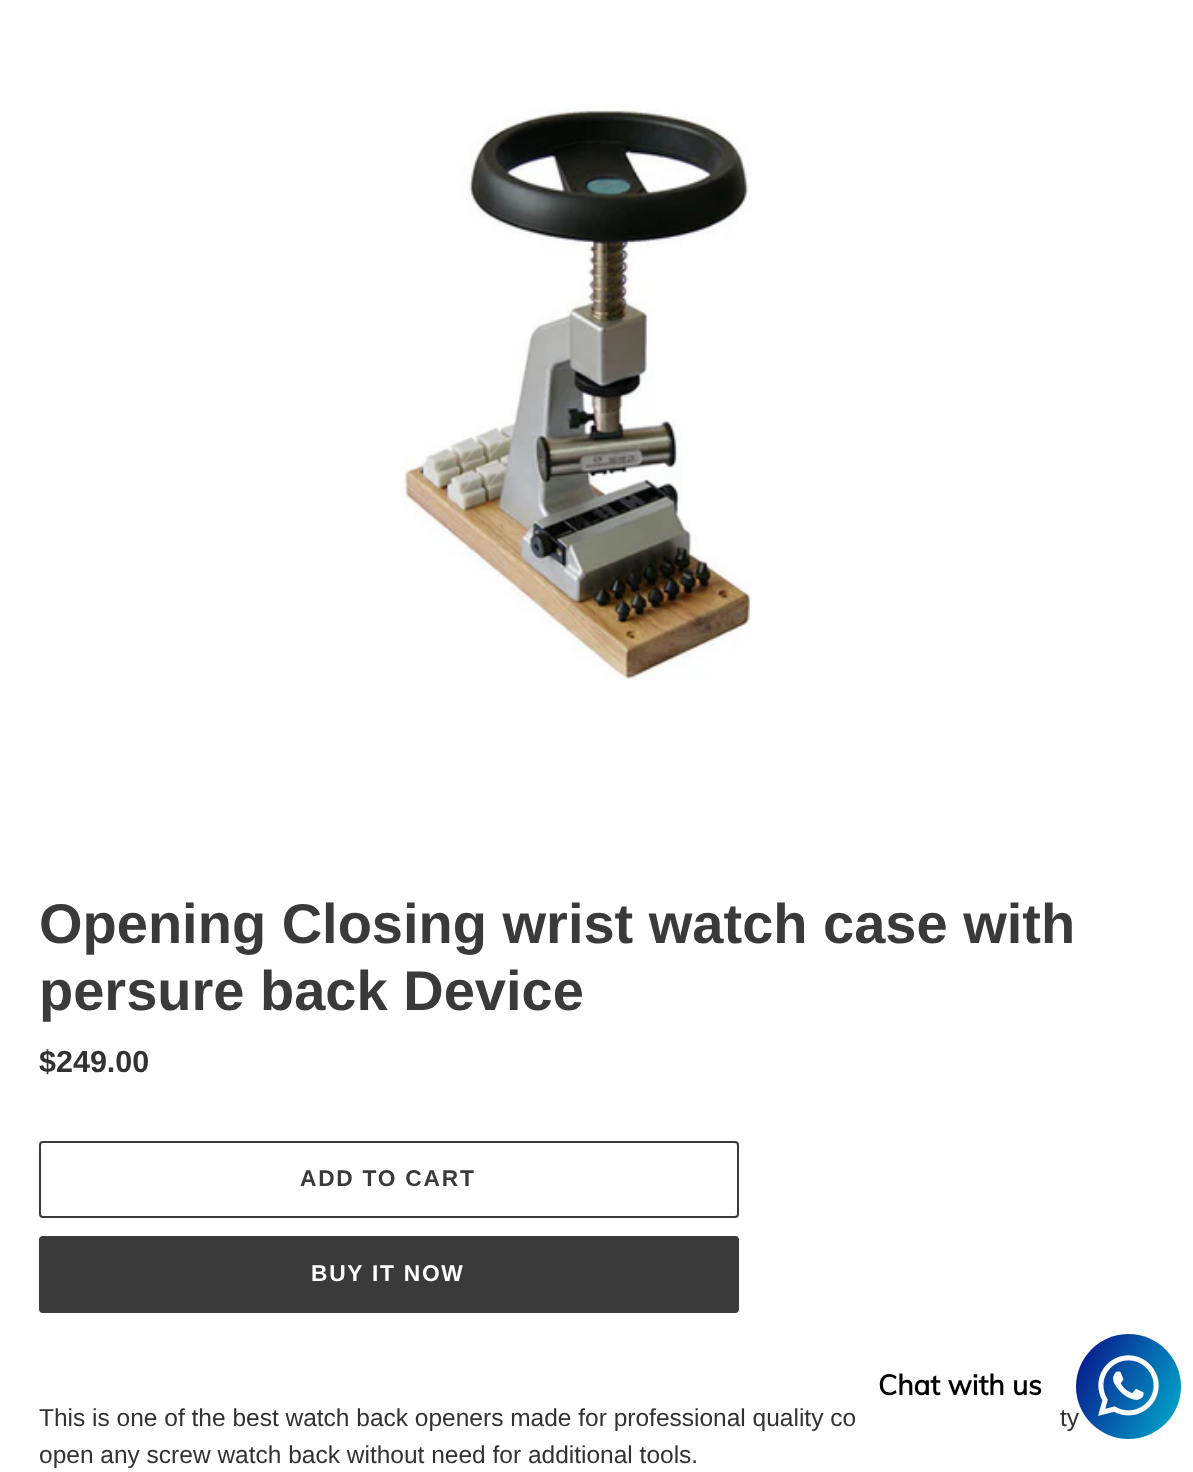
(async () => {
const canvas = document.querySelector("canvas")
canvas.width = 1193
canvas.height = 1472
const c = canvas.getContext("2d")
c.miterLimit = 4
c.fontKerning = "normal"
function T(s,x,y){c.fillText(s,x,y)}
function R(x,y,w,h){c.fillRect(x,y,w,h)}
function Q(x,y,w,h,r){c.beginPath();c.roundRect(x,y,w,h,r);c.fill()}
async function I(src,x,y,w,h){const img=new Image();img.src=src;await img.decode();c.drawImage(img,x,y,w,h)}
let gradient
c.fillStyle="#fff"
R(0,0,1193,1472)
await I("1.png",401,103,351,577)
c.font="bold 56px Liberation Sans"
c.fillStyle="#3a3a3a"
T("Opening Closing wrist watch case with",39,943)
T("persure back Device",39,1010)
c.font="bold 30.5px Liberation Sans"
c.fillStyle="#333232"
T("$249.00",39,1072)
c.beginPath()
c.roundRect(40,1142,698,75,3)
c.strokeStyle="#3a3a3a"
c.lineWidth=2
c.stroke()
c.letterSpacing="1.75px"
c.font="bold 22.75px Liberation Sans"
c.fillStyle="#3a3a3a"
T("ADD TO CART",300,1186)
Q(39,1236,700,77,4)
c.fillStyle="#fff"
T("BUY IT NOW",311,1281)
c.letterSpacing="0px"
c.font="24.5px Liberation Sans"
c.fillStyle="#333232"
T("This is one of the best watch back openers made for professional quality co",39,1426)
T("ty",1060,1426)
T("open any screw watch back without need for additional tools.",39,1463)
gradient = c.createLinearGradient(1066,1357,1192,1415)
gradient.addColorStop(0,"#0a0e88")
gradient.addColorStop(1,"#00b1ce")
c.fillStyle = gradient
c.beginPath()
c.arc(1128.5,1386.5,52.5,0,7)
c.fill()
c.font="bold 28px Muli"
c.fillStyle="#000"
T("Chat with us",878,1395)
await I("2.png",1098,1355,61,61)
})()
